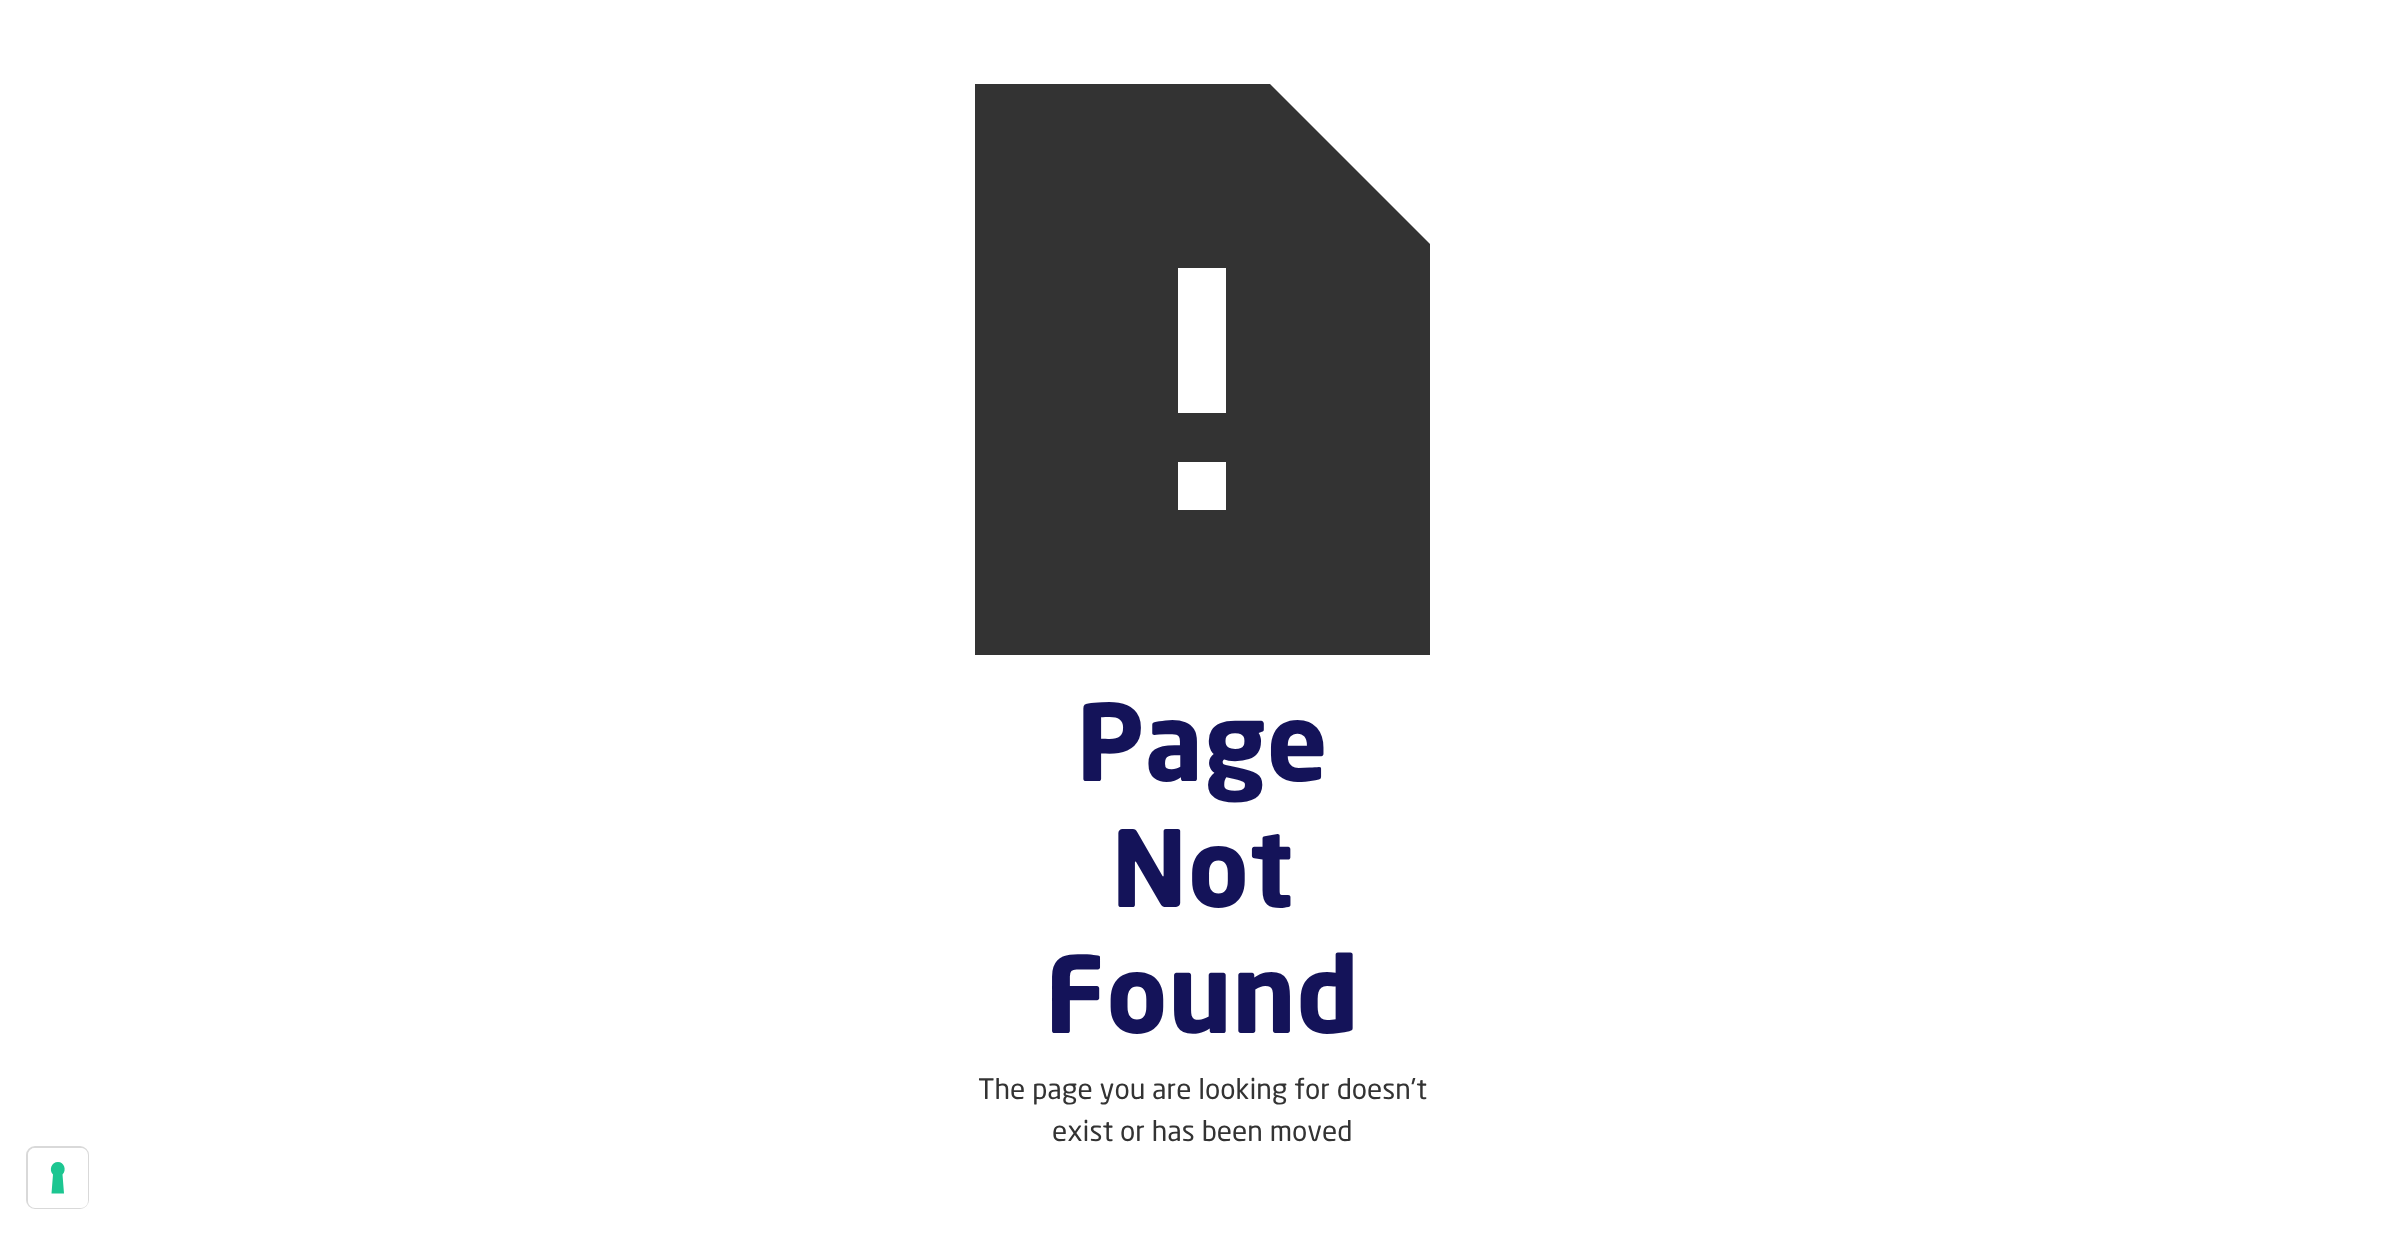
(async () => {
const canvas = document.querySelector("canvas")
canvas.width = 2404
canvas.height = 1235
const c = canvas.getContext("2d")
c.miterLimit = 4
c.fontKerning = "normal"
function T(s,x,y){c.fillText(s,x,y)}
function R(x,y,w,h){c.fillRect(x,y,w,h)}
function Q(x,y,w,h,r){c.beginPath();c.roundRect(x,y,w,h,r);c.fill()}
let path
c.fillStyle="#fff"
R(0,0,2404,1235)
c.fillStyle="#333"
path = new Path2D("M975 84h295l160 160v411h-455zm203 184h48v145h-48zm0 194h48v48h-48z")
c.fill(path,"evenodd")
c.font="bold 105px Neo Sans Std"
c.fillStyle="#141359"
T("Page",1076,781)
T("Not",1111,907)
T("Found",1045,1033)
c.font="28px Neo Sans Std"
c.fillStyle="#333"
T("The page you are looking for doesn't",978,1099)
T("exist or has been moved",1052,1141)
c.beginPath()
c.roundRect(27,1147,61,61,8)
c.strokeStyle="#d9d9d9"
c.lineWidth=2
c.stroke()
c.fillStyle="#fff"
Q(28,1148,60,60,7)
c.fillStyle="#1cc691"
path = new Path2D("M58 1162c6 0 9 8 4.5 12.5l1.5 19h-12.5l1.5-19c-4.5-4.5-1.5-12.5 5-12.5z")
c.fill(path,"evenodd")
})()
